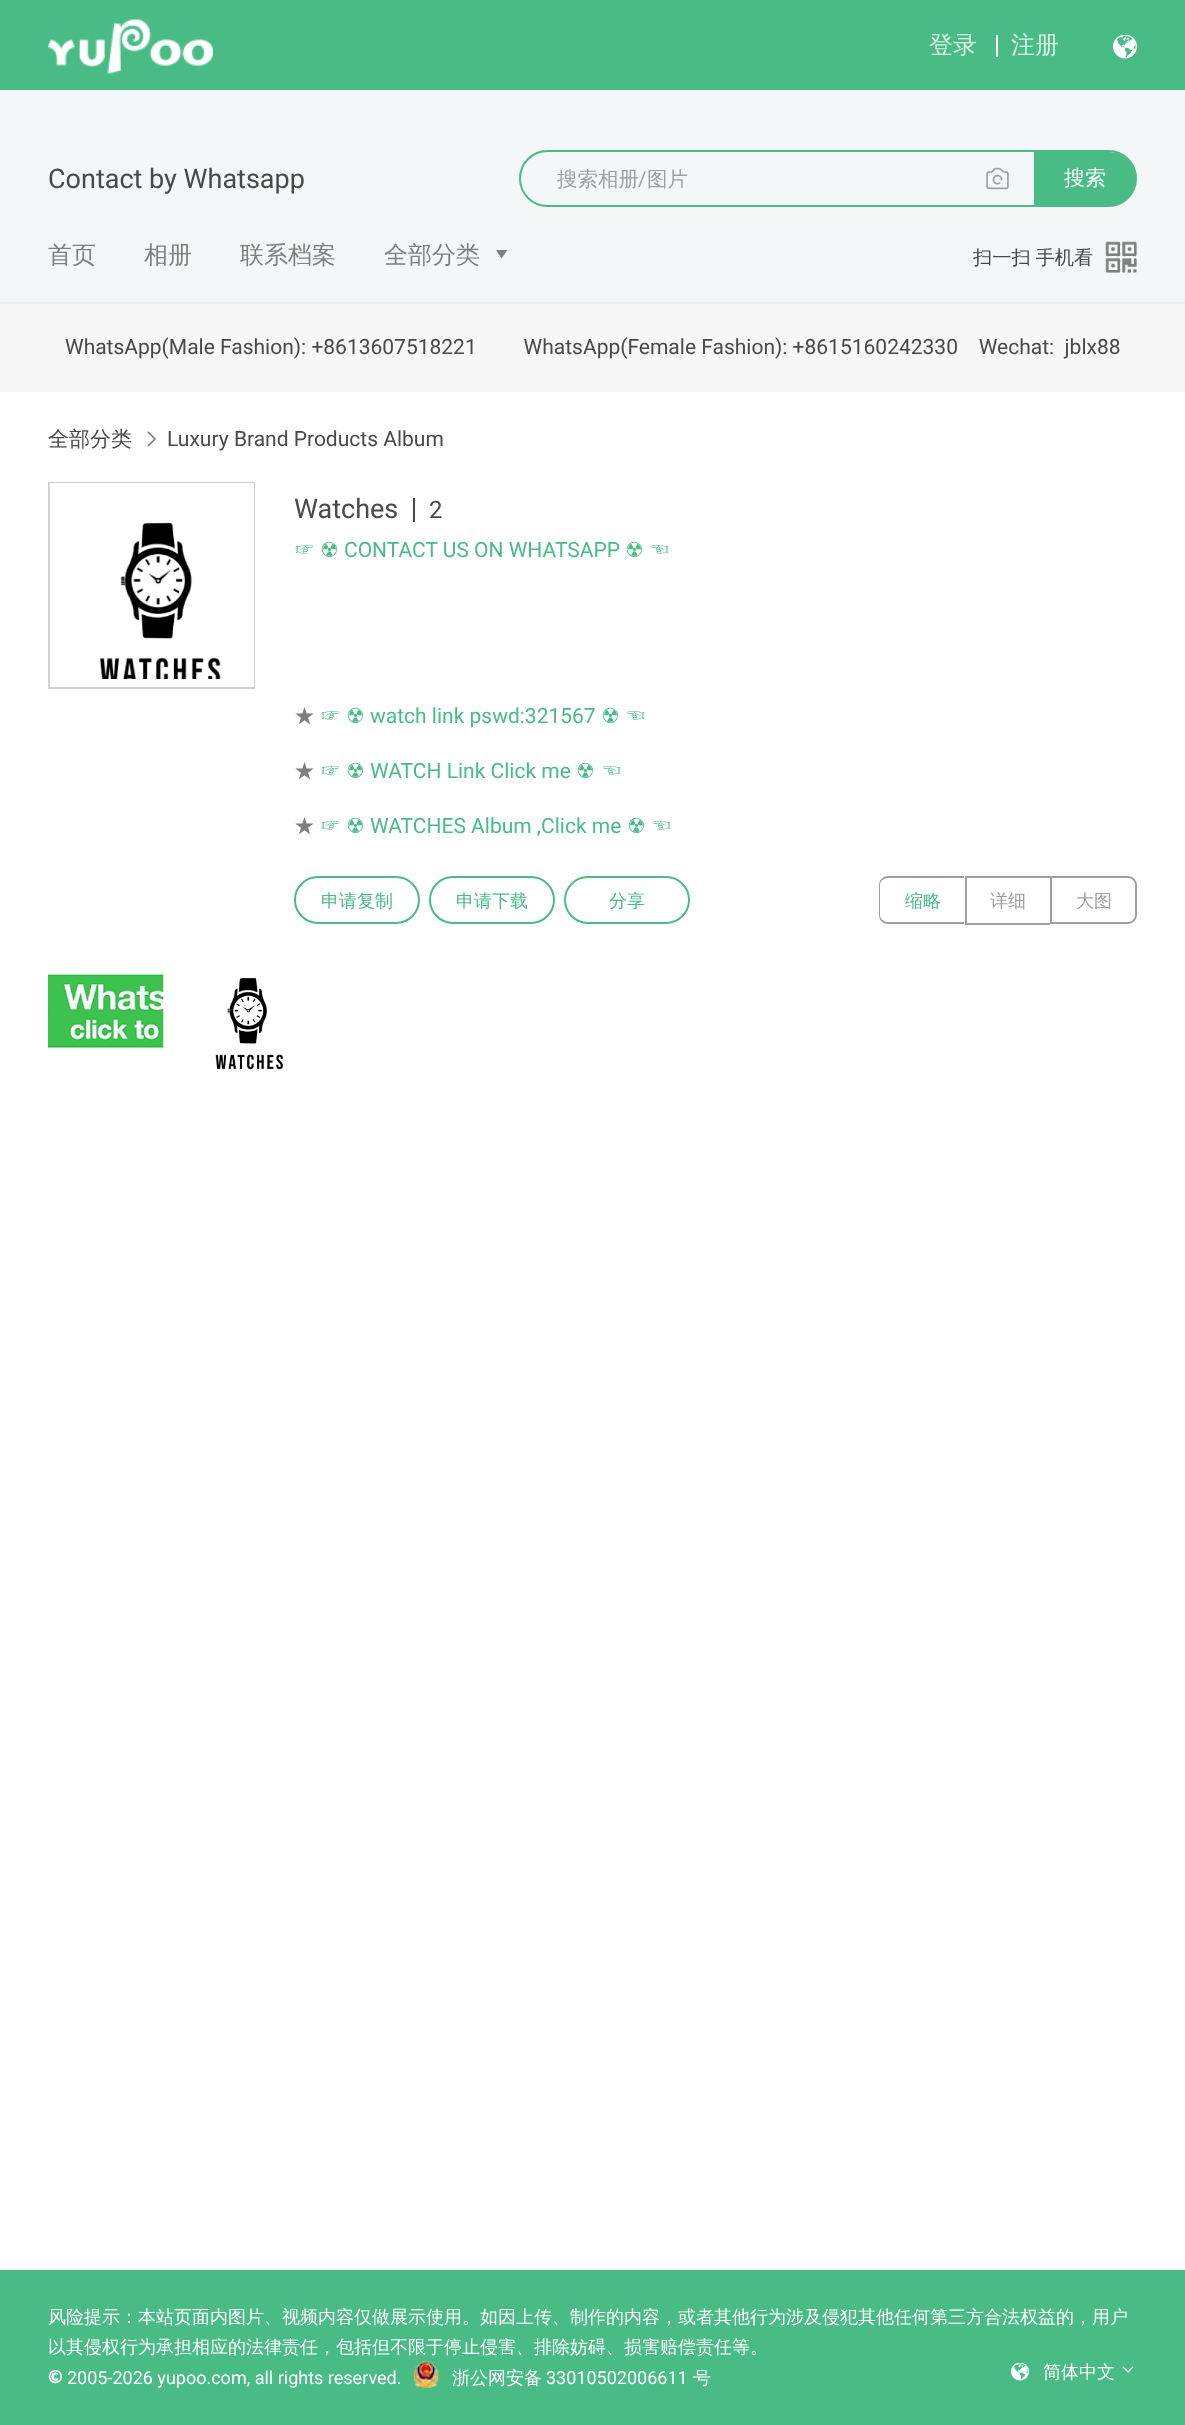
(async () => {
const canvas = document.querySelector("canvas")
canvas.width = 1185
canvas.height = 2425
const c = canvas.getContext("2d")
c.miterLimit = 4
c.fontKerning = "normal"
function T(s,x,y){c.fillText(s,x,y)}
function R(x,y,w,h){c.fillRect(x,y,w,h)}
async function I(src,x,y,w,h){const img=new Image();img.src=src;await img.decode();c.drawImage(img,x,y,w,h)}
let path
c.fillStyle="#fff"
R(0,0,1185,2425)
c.fillStyle="#49bc85"
R(0,0,1185,90)
await I("1.png",48,19,165,55)
c.font="500 24px WenQuanYi Zen Hei"
c.fillStyle="#dbf2e7"
T("登录",929,53)
c.fillStyle="#fff"
R(996,35,2,22)
c.fillStyle="#dbf2e7"
T("注册",1011,53)
await I("2.png",1113,35,24,24)
c.fillStyle="#f3f7f7"
R(0,90,1185,212)
c.font="27px Roboto"
c.fillStyle="#494949"
T("Contact by Whatsapp",48,188)
c.beginPath()
c.roundRect(520,151,616,55,27.5)
c.strokeStyle="#49bc85"
c.lineWidth=2
c.stroke()
c.font="500 20.5px WenQuanYi Zen Hei"
c.fillStyle="#9f9f9f"
T("搜索相册",557,186)
c.font="20.5px Roboto"
T("/",638,186)
c.font="500 20.5px WenQuanYi Zen Hei"
T("图片",647,186)
await I("3.png",986,167,23,23)
c.fillStyle="#49bc85"
c.beginPath()
c.roundRect(1035,153,100,52,[0,26,26,0])
c.fill()
c.stroke()
c.font="21px Noto Sans"
c.fillStyle="#fff"
T("搜",1064,185)
c.font="500 21px WenQuanYi Zen Hei"
T("索",1085,185)
c.font="500 24px WenQuanYi Zen Hei"
c.fillStyle="#7f7f7f"
T("首页",48,263)
T("相册",144,263)
T("联系档案",240,263)
T("全部分类",384,263)
path = new Path2D("M501.5 258.5l-5.5-8.5h11.5z")
c.fill(path)
c.wordSpacing="-1px"
c.font="500 19.25px WenQuanYi Zen Hei"
c.fillStyle="#494949"
T("扫一扫 手机看",973,264)
await I("4.png",1105,241,32,32)
c.fillStyle="#f7f7f7"
R(0,304,1185,88)
c.fillStyle="#ececec"
R(0,302,1185,2)
c.wordSpacing="0px"
c.font="21px Roboto"
c.fillStyle="#494949"
T("WhatsApp(Male Fashion): +8613607518221         WhatsApp(Female Fashion): +8615160242330    Wechat:  jblx88",65,354)
c.font="500 21px WenQuanYi Zen Hei"
T("全部分类",48,446)
await I("5.png",147,431,9,16)
c.font="21px Roboto"
T("Luxury Brand Products Album",167,446)
c.strokeStyle="#cfcfcf"
c.strokeRect(49,483,205,205)
await I("6.png",49,483,197,204)
c.strokeStyle="#fff"
c.lineWidth=8
c.strokeRect(54,487,196,196)
c.font="27px Roboto"
T("Watches",294,518)
R(413,498,2,24)
c.font="24px Roboto"
T("2",429,518)
c.font="500 21px WenQuanYi Zen Hei"
c.fillStyle="#49bc85"
T("☞",294,557)
c.font="21px DejaVu Sans"
T("☢",320,557)
c.font="21px Roboto"
T("CONTACT US ON WHATSAPP",344,557)
c.font="21px DejaVu Sans"
T("☢",625,557)
c.font="500 21px WenQuanYi Zen Hei"
T("☜",649,557)
c.fillStyle="#7f7f7f"
T("★",294,723)
c.fillStyle="#49bc85"
T("☞",320,723)
c.font="21px DejaVu Sans"
T("☢",346,723)
c.font="21px Roboto"
T("watch link pswd:321567",370,723)
c.font="21px DejaVu Sans"
T("☢",601,723)
c.font="500 21px WenQuanYi Zen Hei"
T("☜",625,723)
c.fillStyle="#7f7f7f"
T("★",294,778)
c.fillStyle="#49bc85"
T("☞",320,778)
c.font="21px DejaVu Sans"
T("☢",346,778)
c.font="21px Roboto"
T("WATCH Link Click me",370,778)
c.font="21px DejaVu Sans"
T("☢",576,778)
c.font="500 21px WenQuanYi Zen Hei"
T("☜",601,778)
c.fillStyle="#7f7f7f"
T("★",294,833)
c.fillStyle="#49bc85"
T("☞",320,833)
c.font="21px DejaVu Sans"
T("☢",346,833)
c.font="21px Roboto"
T("WATCHES Album ,Click me",370,833)
c.font="21px DejaVu Sans"
T("☢",627,833)
c.font="500 21px WenQuanYi Zen Hei"
T("☜",651,833)
c.beginPath()
c.roundRect(295,877,124,46,23)
c.strokeStyle="#49bc85"
c.lineWidth=2
c.stroke()
c.font="500 18px WenQuanYi Zen Hei"
T("申请复制",321,907)
c.beginPath()
c.roundRect(430,877,124,46,23)
c.stroke()
T("申请下载",456,907)
c.beginPath()
c.roundRect(565,877,124,46,23)
c.stroke()
T("分享",609,907)
c.fillStyle="#9f9f9f"
path = new Path2D("M888 876h76v48h-76c-5 0-9-4-9-9v-30c0-5 4-9 9-9zm0 2h76v44h-76c-4 0-8-3-8-7v-30c0-4 4-7 8-7z")
c.fill(path,"evenodd")
c.fillStyle="#49bc85"
T("缩略",905,907)
c.fillStyle="#9f9f9f"
R(965,876,85,2)
R(965,923,85,2)
R(965,876,2,48)
T("详细",990,907)
c.beginPath()
c.roundRect(1051,877,85,46,[0,8,8,0])
c.strokeStyle="#9f9f9f"
c.stroke()
T("大图",1076,907)
await I("7.png",48,973,116,76)
await I("8.png",215,978,69,93)
c.fillStyle="#49bc85"
R(0,2270,1185,155)
c.font="18px Noto Sans"
c.fillStyle="#fff"
T("风",48,2323)
c.font="500 18px WenQuanYi Zen Hei"
T("险提示：本站页面内图片、视频内容仅做展示使用。如因上传、制作的内容，或者其他行为涉及侵犯其他任何第三方合法权益的，用户",66,2323)
T("以其侵权行为承担相应的法律责任，包括但不限于停止侵害、排除妨碍、损害赔偿责任等。",48,2353)
c.font="900 18px Noto Sans"
T("©",48,2383)
c.font="18px Roboto"
T("2005-2026 yupoo.com, all rights reserved.",67,2384)
await I("9.png",413,2361,26,27)
c.font="500 18px WenQuanYi Zen Hei"
T("浙公网安备",452,2384)
c.font="18px Roboto"
T("33010502006611",546,2384)
c.font="500 18px WenQuanYi Zen Hei"
T("号",693,2384)
await I("10.png",1011,2363,18,18)
T("简体中文",1043,2378)
await I("11.png",1122,2366,12,7)
})()
